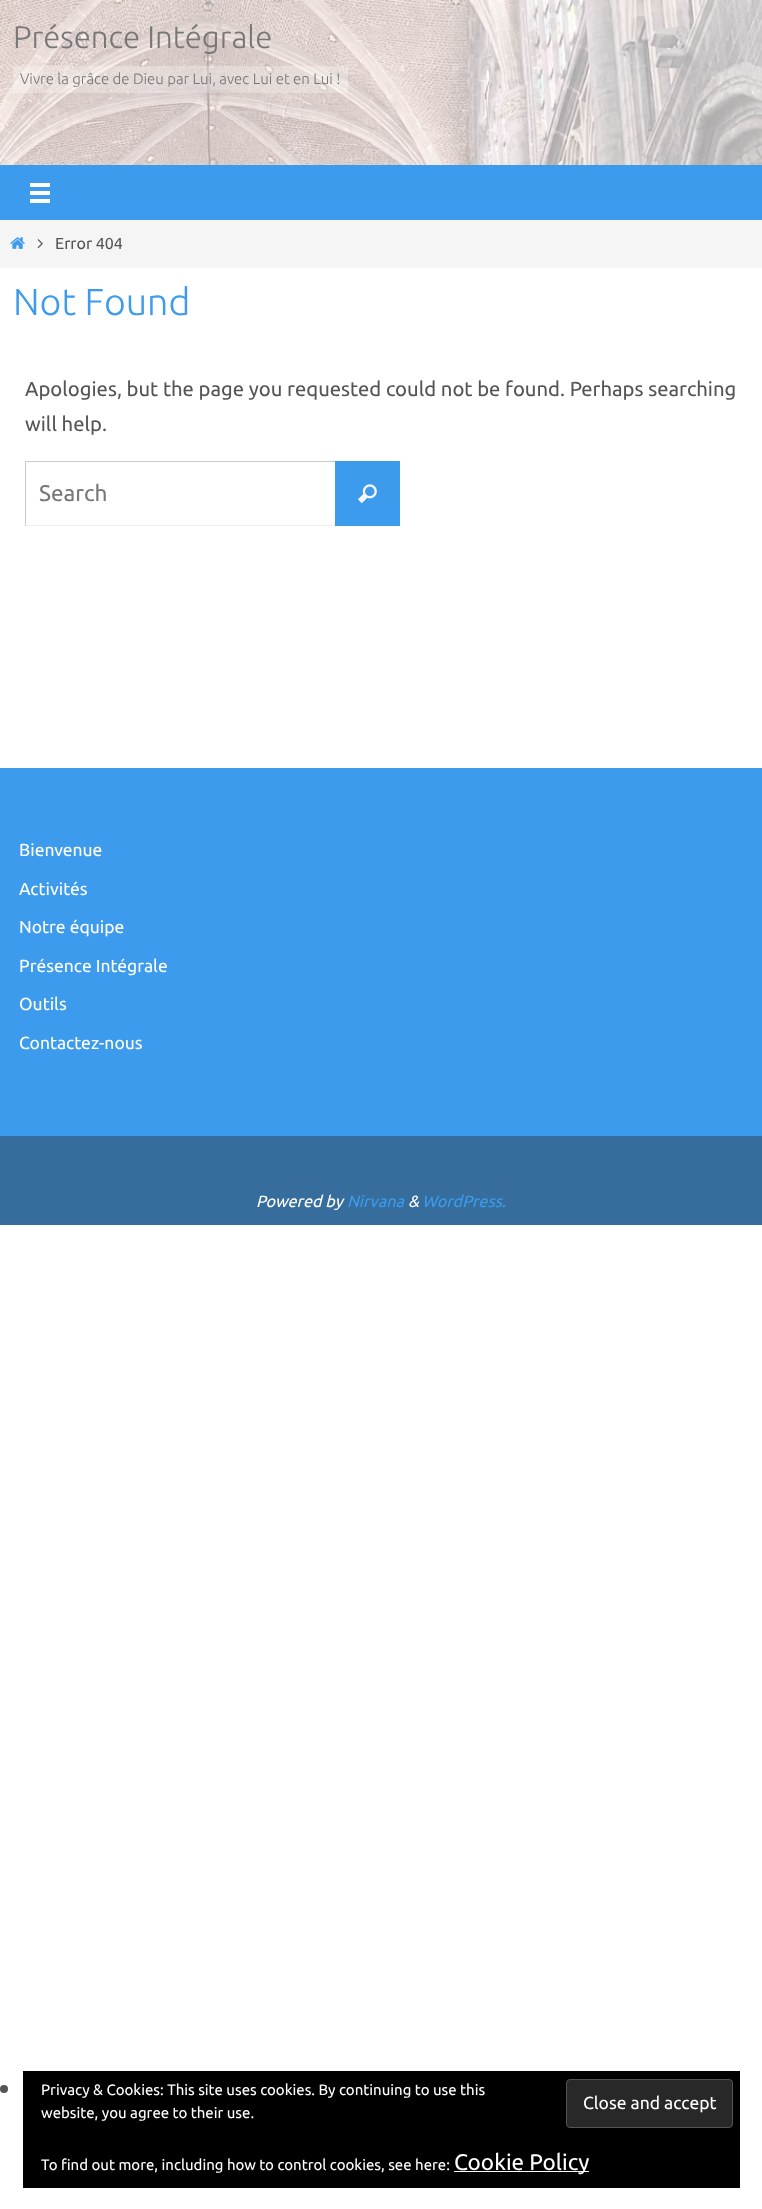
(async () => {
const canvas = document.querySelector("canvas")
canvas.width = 762
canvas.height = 2209
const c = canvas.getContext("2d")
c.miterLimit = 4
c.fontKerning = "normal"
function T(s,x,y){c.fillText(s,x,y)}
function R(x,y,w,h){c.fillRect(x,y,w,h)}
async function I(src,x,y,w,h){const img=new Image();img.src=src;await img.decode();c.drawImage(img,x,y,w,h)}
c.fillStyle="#fff"
R(0,0,762,2209)
await I("1.png",0,0,762,165)
c.font="300 31.25px Ubuntu"
c.fillStyle="#777"
T("Présence Intégrale",13,48)
c.fillStyle="#ffffff4d"
R(13,66,335,27)
c.font="300 15px Ubuntu"
c.fillStyle="#777"
T("Vivre la grâce de Dieu par Lui, avec Lui et en Lui !",20,84)
c.fillStyle="#3c9bed"
R(0,165,762,55)
await I("2.png",30,183,20,20)
c.fillStyle="#f5f5f5"
R(0,220,762,48)
await I("3.png",10,237,15,12)
await I("4.png",37,239,6,10)
c.font="16px Ubuntu"
c.fillStyle="#555"
T("Error 404",55,249)
c.font="300 37.5px Ubuntu"
c.fillStyle="#3c9bed"
T("Not Found",13,315)
c.font="20.25px Ubuntu"
c.fillStyle="#555"
T("Apologies, but the page you requested could not be found. Perhaps searching",25,396)
T("will help.",25,431)
c.fillStyle="#ccc"
R(25,461,310,1)
c.fillStyle="#eee"
R(25,525,310,1)
c.fillStyle="#ccc"
R(25,461,1,65)
c.font="22.5px Ubuntu"
c.fillStyle="#777"
T("Search",39,501)
c.fillStyle="#3c9bed"
R(335,461,65,65)
await I("5.png",358,484,19,20)
R(0,768,762,368)
c.font="17.5px Ubuntu"
c.fillStyle="#fff"
T("Bienvenue",19,856)
T("Activités",19,895)
T("Notre équipe",19,933)
T("Présence Intégrale",19,972)
T("Outils",19,1010)
T("Contactez-nous",19,1049)
c.fillStyle="#366d9d"
R(0,1136,762,89)
c.font="italic 16.25px Ubuntu"
c.fillStyle="#fff"
T("Powered by",256,1207)
c.fillStyle="#3c9bed"
T("Nirvana",347,1207)
c.fillStyle="#fff"
T("&",408,1207)
c.fillStyle="#3c9bed"
T("WordPress.",422,1207)
c.fillStyle="#555"
c.beginPath()
c.arc(4,2089,4,0,7)
c.fill()
c.fillStyle="#000"
R(23,2071,717,117)
c.font="15px Ubuntu"
c.fillStyle="#fff"
T("Privacy & Cookies: This site uses cookies. By continuing to use this",41,2095)
T("website, you agree to their use.",41,2118)
c.fillStyle="#282828"
c.beginPath()
c.roundRect(566.5,2079.5,166,48,3.5)
c.fill()
c.strokeStyle="#535353"
c.stroke()
c.font="17.5px Ubuntu"
c.fillStyle="#fff"
T("Close and accept",583,2109)
c.font="15px Ubuntu"
T("To find out more, including how to control cookies, see here:",41,2170)
R(454,2171,135,1)
c.font="22.5px Ubuntu"
T("Cookie Policy",454,2170)
})()
